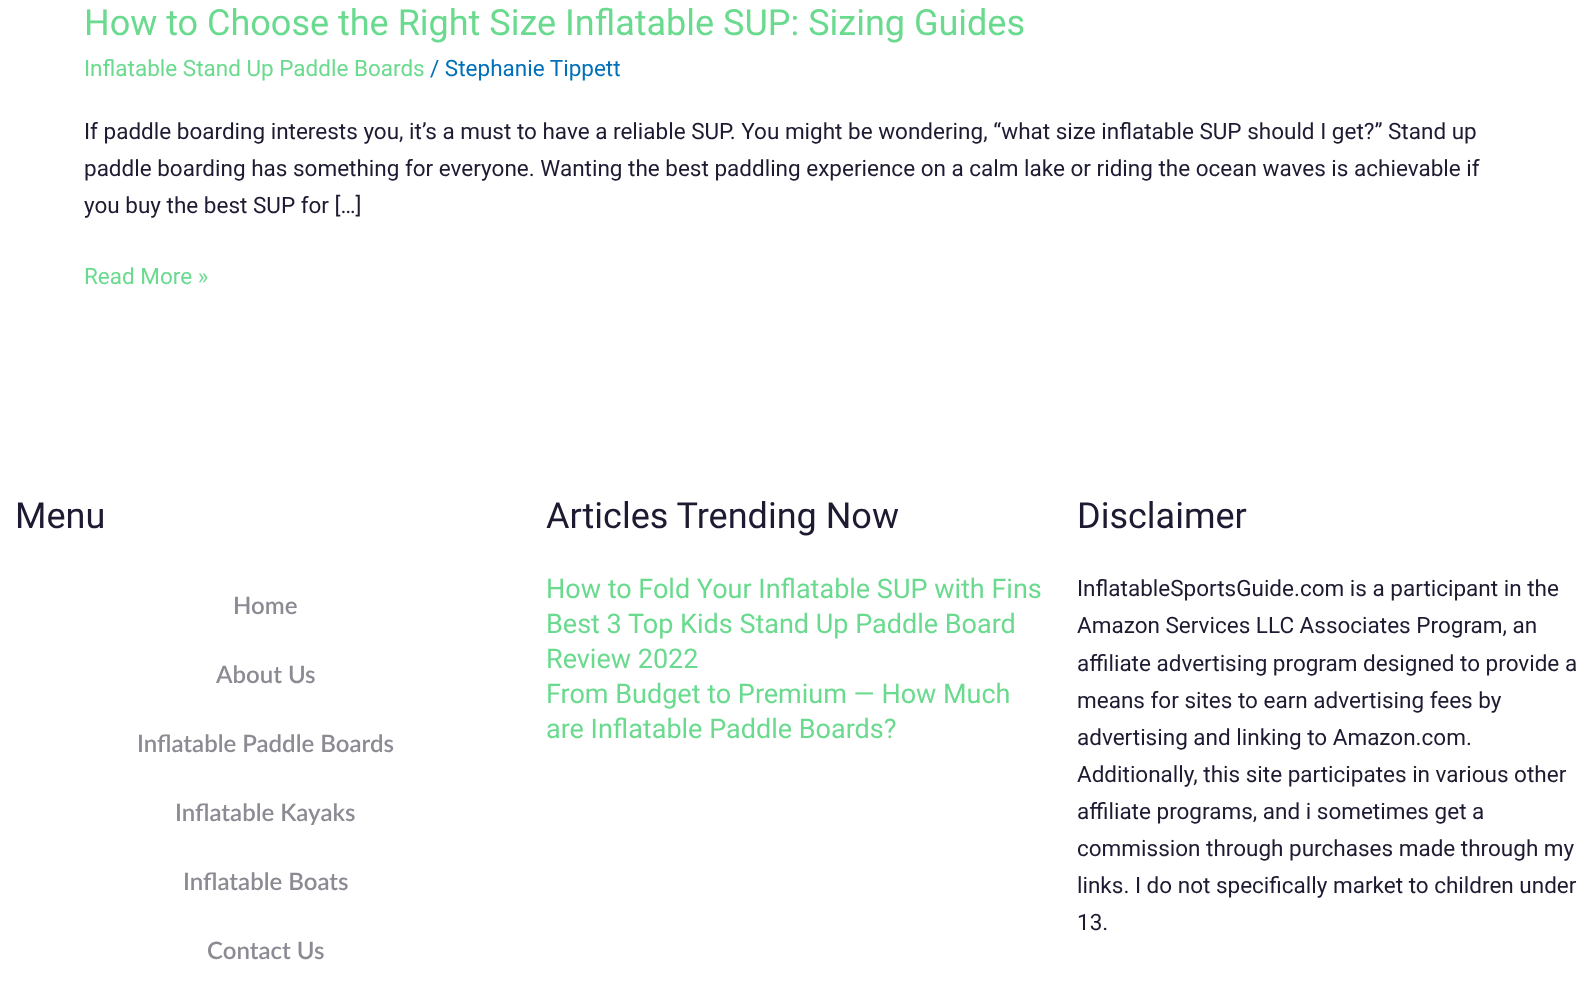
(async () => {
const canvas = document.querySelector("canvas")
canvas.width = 1593
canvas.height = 1000
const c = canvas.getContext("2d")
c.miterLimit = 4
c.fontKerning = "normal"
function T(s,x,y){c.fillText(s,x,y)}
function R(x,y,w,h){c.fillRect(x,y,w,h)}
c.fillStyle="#fff"
R(0,0,1593,1000)
c.font="36px Roboto"
c.fillStyle="#6ada8e"
T("How to Choose the Right Size Inflatable SUP: Sizing Guides",84,35)
c.font="22.5px Roboto"
T("Inflatable Stand Up Paddle Boards",84,76)
c.fillStyle="#0170b9"
T("/ Stephanie Tippett",430,76)
c.fillStyle="#1d1a31"
T("If paddle boarding interests you, it’s a must to have a reliable SUP. You might be wondering, “what size inflatable SUP should I get?” Stand up",84,139)
T("paddle boarding has something for everyone. Wanting the best paddling experience on a calm lake or riding the ocean waves is achievable if",84,176)
T("you buy the best SUP for […]",84,213)
c.fillStyle="#6ada8e"
T("Read More »",84,284)
c.font="36px Roboto"
c.fillStyle="#1d1a31"
T("Menu",15,528)
c.font="600 24px Lato"
c.fillStyle="#8c8a93"
T("Home",233,614)
T("About Us",216,683)
T("Inflatable Paddle Boards",137,752)
T("Inflatable Kayaks",175,821)
T("Inflatable Boats",183,890)
T("Contact Us",207,959)
c.font="36px Roboto"
c.fillStyle="#1d1a31"
T("Articles Trending Now",546,528)
c.font="27px Roboto"
c.fillStyle="#6ada8e"
T("How to Fold Your Inflatable SUP with Fins",546,598)
T("Best 3 Top Kids Stand Up Paddle Board",546,633)
T("Review 2022",546,668)
T("From Budget to Premium — How Much",546,703)
T("are Inflatable Paddle Boards?",546,738)
c.font="36px Roboto"
c.fillStyle="#1d1a31"
T("Disclaimer",1077,528)
c.font="22.5px Roboto"
T("InflatableSportsGuide.com is a participant in the",1077,596)
T("Amazon Services LLC Associates Program, an",1077,633)
T("affiliate advertising program designed to provide a",1077,671)
T("means for sites to earn advertising fees by",1077,708)
T("advertising and linking to Amazon.com.",1077,745)
T("Additionally, this site participates in various other",1077,782)
T("affiliate programs, and i sometimes get a",1077,819)
T("commission through purchases made through my",1077,856)
T("links. I do not specifically market to children under",1077,893)
T("13.",1077,930)
})()
